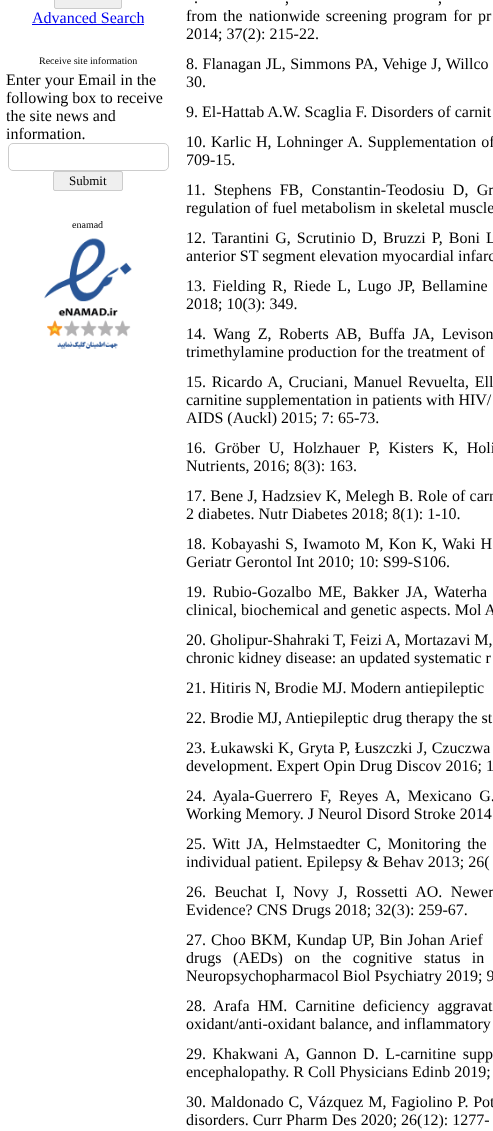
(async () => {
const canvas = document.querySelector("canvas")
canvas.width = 493
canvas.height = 1131
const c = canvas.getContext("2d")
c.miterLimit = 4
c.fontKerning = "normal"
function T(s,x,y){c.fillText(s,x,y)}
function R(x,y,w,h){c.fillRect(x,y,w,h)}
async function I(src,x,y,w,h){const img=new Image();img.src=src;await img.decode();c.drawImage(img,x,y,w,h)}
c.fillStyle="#fff"
R(0,0,493,1131)
c.fillStyle="#efefef"
c.beginPath()
c.roundRect(54.5,-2.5,67,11,1.5)
c.fill()
c.strokeStyle="#ccc"
c.stroke()
c.font="16px Liberation Serif"
c.fillStyle="#00e"
T("Advanced Search",32,23)
R(32,24,112,1)
c.font="10px Liberation Serif"
c.fillStyle="#000"
T("Receive site information",39,64)
c.font="16px Liberation Serif"
T("Enter your Email in the",6,85)
T("following box to receive",6,103)
T("the site news and",6,121)
T("information.",6,139)
c.beginPath()
c.roundRect(8.5,143.5,160,27,4.5)
c.stroke()
c.fillStyle="#efefef"
c.beginPath()
c.roundRect(53.5,171.5,69,19,1.5)
c.fill()
c.stroke()
c.font="13px Liberation Serif"
c.fillStyle="#000"
T("Submit",69,185)
c.font="10px Liberation Serif"
T("enamad",72,228)
await I("1.png",44,238,88,111)
c.wordSpacing="0.25px"
c.font="16px Liberation Serif"
T(".",194,3)
T(",",285,3)
T(",",438,3)
c.wordSpacing="2px"
T("from the nationwide screening program for pr",186,21)
c.wordSpacing="0px"
T("2014; 37(2): 215-22.",186,39)
c.wordSpacing="0.5px"
T("8. Flanagan JL, Simmons PA, Vehige J, Willco",186,69)
c.wordSpacing="0px"
T("30.",186,87)
T("9. El-Hattab A.W. Scaglia F. Disorders of carnit",186,117)
c.wordSpacing="1px"
T("10. Karlic H, Lohninger A. Supplementation of",186,147)
c.wordSpacing="0px"
T("709-15.",186,165)
c.wordSpacing="4.25px"
T("11. Stephens FB, Constantin‐Teodosiu D, Gr",186,195)
c.wordSpacing="0px"
T("regulation of fuel metabolism in skeletal muscle",186,213)
c.wordSpacing="2px"
T("12. Tarantini G, Scrutinio D, Bruzzi P, Boni L",186,243)
c.wordSpacing="0px"
T("anterior ST segment elevation myocardial infarc",186,261)
c.wordSpacing="2.5px"
T("13. Fielding R, Riede L, Lugo JP, Bellamine",186,291)
c.wordSpacing="0px"
T("2018; 10(3): 349.",186,309)
c.wordSpacing="3.5px"
T("14. Wang Z, Roberts AB, Buffa JA, Levison",186,339)
c.wordSpacing="0px"
T("trimethylamine production for the treatment of",186,357)
c.wordSpacing="1.75px"
T("15. Ricardo A, Cruciani, Manuel Revuelta, Ell",186,387)
c.wordSpacing="0px"
T("carnitine supplementation in patients with HIV/",186,405)
T("AIDS (Auckl) 2015; 7: 65-73.",186,423)
c.wordSpacing="4.75px"
T("16. Gröber U, Holzhauer P, Kisters K, Holi",186,453)
c.wordSpacing="0px"
T("Nutrients, 2016; 8(3): 163.",186,471)
c.wordSpacing="0.25px"
T("17. Bene J, Hadzsiev K, Melegh B. Role of carn",186,501)
c.wordSpacing="0px"
T("2 diabetes. Nutr Diabetes 2018; 8(1): 1-10.",186,519)
c.wordSpacing="1.25px"
T("18. Kobayashi S, Iwamoto M, Kon K, Waki H",186,549)
c.wordSpacing="0px"
T("Geriatr Gerontol Int 2010; 10: S99-S106.",186,567)
c.wordSpacing="2.75px"
T("19. Rubio-Gozalbo ME, Bakker JA, Waterha",186,597)
c.wordSpacing="0px"
T("clinical, biochemical and genetic aspects. Mol A",186,615)
T("20. Gholipur-Shahraki T, Feizi A, Mortazavi M,",186,645)
T("chronic kidney disease: an updated systematic r",186,663)
T("21. Hitiris N, Brodie MJ. Modern antiepileptic",186,693)
T("22. Brodie MJ, Antiepileptic drug therapy the st",186,723)
c.wordSpacing="0.5px"
T("23. Łukawski K, Gryta P, Łuszczki J, Czuczwa",186,753)
c.wordSpacing="0px"
T("development. Expert Opin Drug Discov 2016; 1",186,771)
c.wordSpacing="3.5px"
T("24. Ayala-Guerrero F, Reyes A, Mexicano G.",186,801)
c.wordSpacing="0px"
T("Working Memory. J Neurol Disord Stroke 2014",186,819)
c.wordSpacing="2.5px"
T("25. Witt JA, Helmstaedter C, Monitoring the",186,849)
c.wordSpacing="0px"
T("individual patient. Epilepsy & Behav 2013; 26(",186,867)
c.wordSpacing="4.5px"
T("26. Beuchat I, Novy J, Rossetti AO. Newer",186,897)
c.wordSpacing="0px"
T("Evidence? CNS Drugs 2018; 32(3): 259-67.",186,915)
c.wordSpacing="1px"
T("27. Choo BKM, Kundap UP, Bin Johan Arief",186,945)
c.wordSpacing="7.5px"
T("drugs (AEDs) on the cognitive status in",186,963)
c.wordSpacing="0px"
T("Neuropsychopharmacol Biol Psychiatry 2019; 9",186,981)
c.wordSpacing="4px"
T("28. Arafa HM. Carnitine deficiency aggravat",186,1011)
c.wordSpacing="0px"
T("oxidant/anti-oxidant balance, and inflammatory",186,1029)
c.wordSpacing="2.5px"
T("29. Khakwani A, Gannon D. L-carnitine supp",186,1059)
c.wordSpacing="0px"
T("encephalopathy. R Coll Physicians Edinb 2019;",186,1077)
c.wordSpacing="0.75px"
T("30. Maldonado C, Vázquez M, Fagiolino P. Pot",186,1107)
c.wordSpacing="0px"
T("disorders. Curr Pharm Des 2020; 26(12): 1277-",186,1125)
})()
